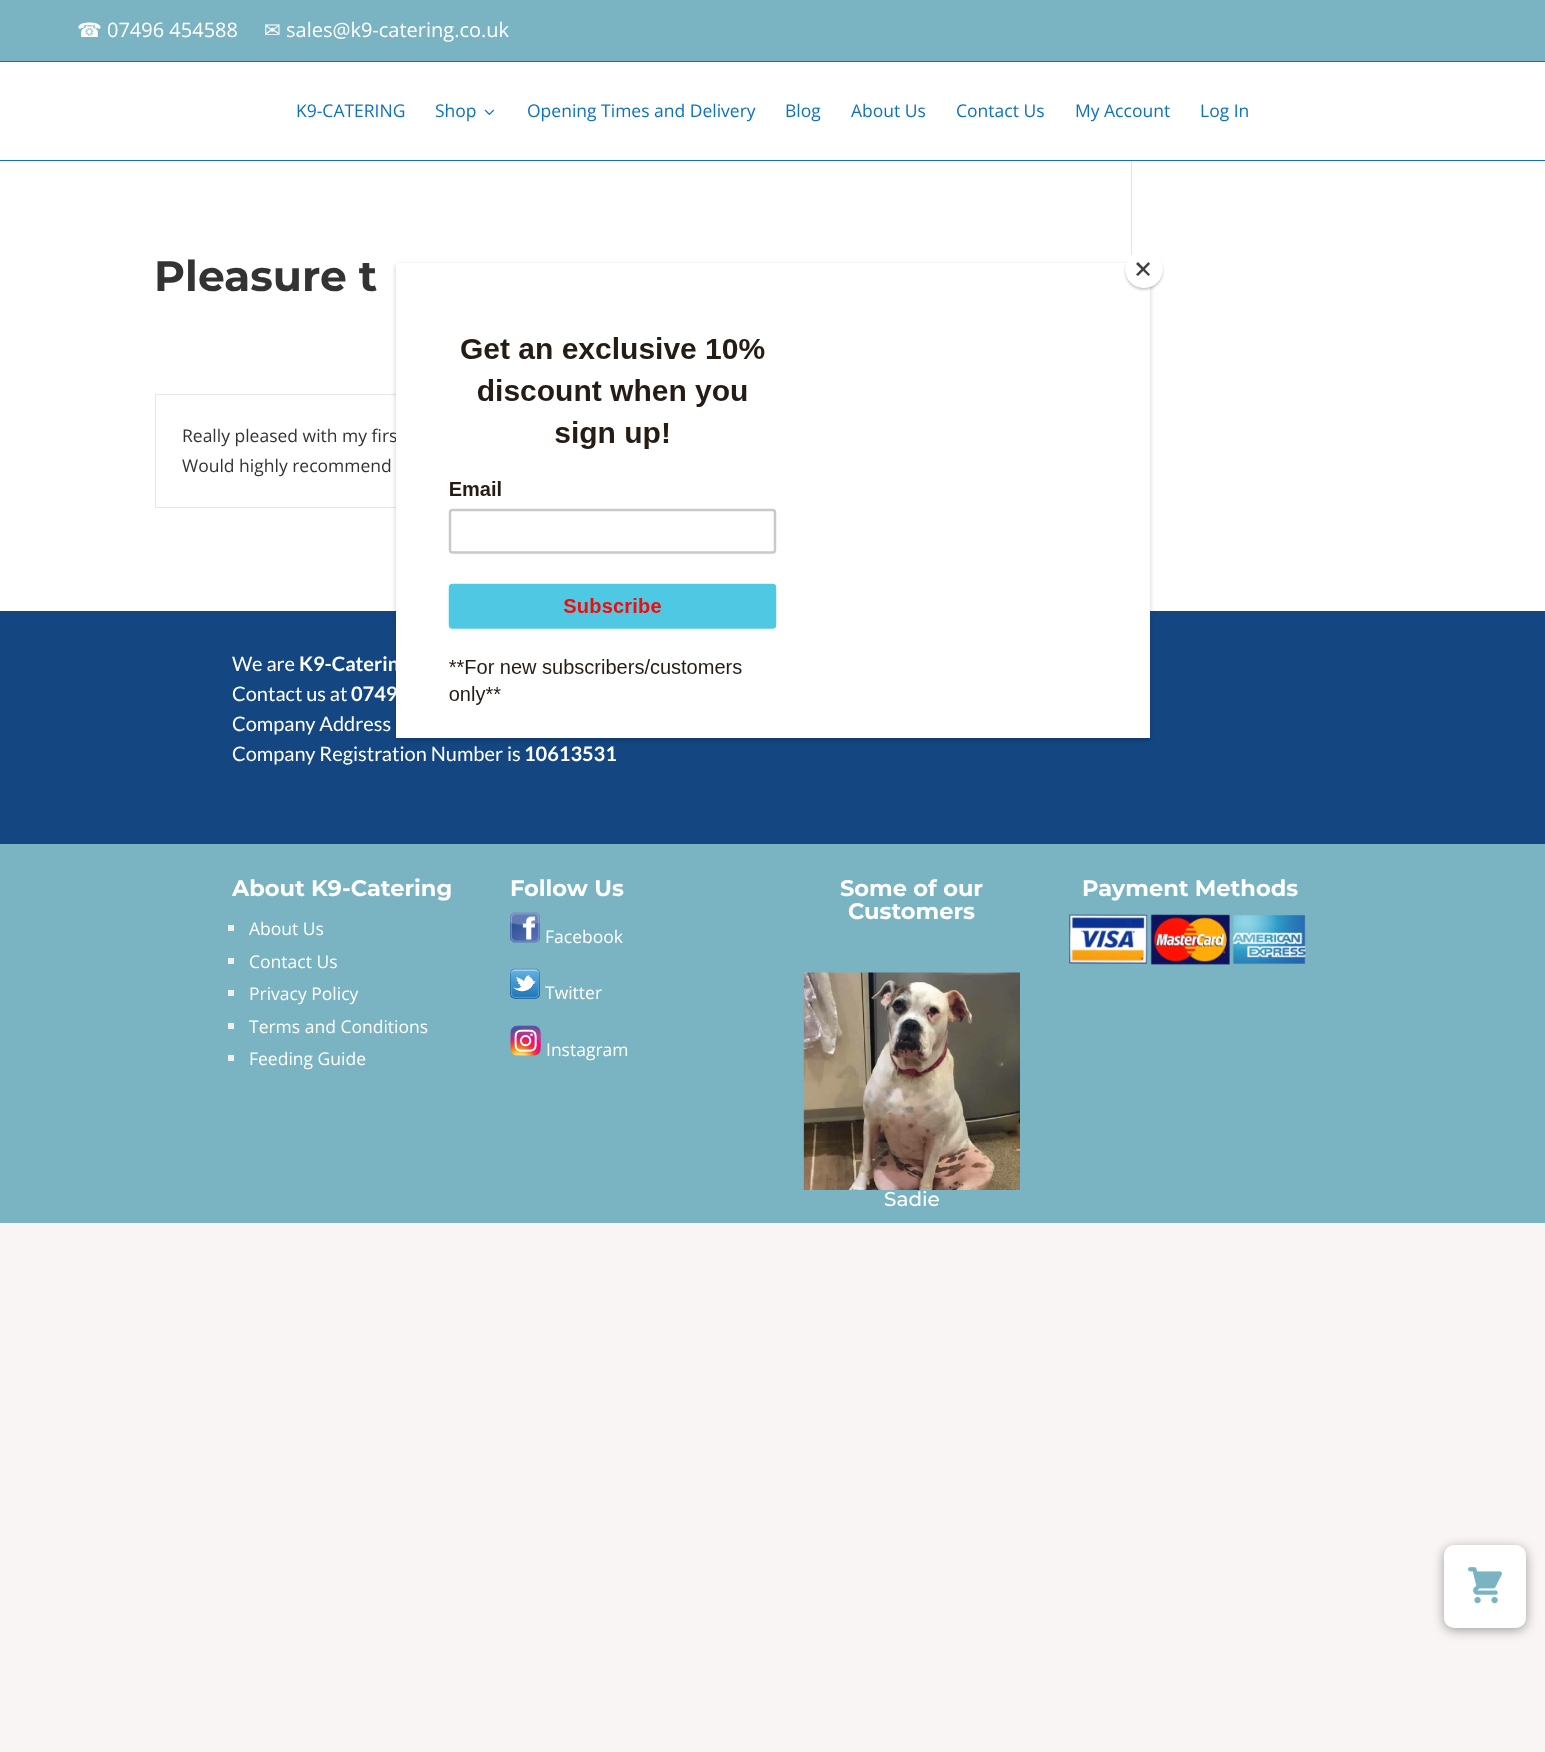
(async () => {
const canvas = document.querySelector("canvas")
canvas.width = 1545
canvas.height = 1752
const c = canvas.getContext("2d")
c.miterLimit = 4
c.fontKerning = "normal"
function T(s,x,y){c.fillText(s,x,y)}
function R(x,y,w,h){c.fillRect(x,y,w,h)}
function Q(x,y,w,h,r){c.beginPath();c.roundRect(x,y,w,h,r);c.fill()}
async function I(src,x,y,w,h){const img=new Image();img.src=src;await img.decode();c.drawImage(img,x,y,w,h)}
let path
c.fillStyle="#f8f5f4"
R(0,0,1545,1752)
c.fillStyle="#fff"
R(0,62,1545,549)
c.fillStyle="#7ab4c3"
R(0,0,1545,61)
c.fillStyle="#0c71c3"
R(0,61,1545,1)
c.font="20px DejaVu Sans"
c.fillStyle="#fff"
T("☎",77,37)
c.font="20px Open Sans"
T("07496 454588",107,37)
c.font="20px DejaVu Sans"
T("✉",264,37)
c.font="20px Open Sans"
T("sales@k9-catering.co.uk",286,37)
c.fillStyle="#0c71c3"
R(0,160,1545,1)
c.font="17.5px Open Sans"
T("K9-CATERING",296,117)
T("Shop",435,117)
await I("1.png",484,109,10,6)
T("Opening Times and Delivery",527,117)
T("Blog",785,117)
T("About Us",851,117)
T("Contact Us",956,117)
T("My Account",1075,117)
T("Log In",1200,117)
c.fillStyle="#e2e2e2"
R(1131,161,1,95)
c.font="100 42.5px Montserrat"
c.fillStyle="#333"
T("Pleasure t",154,291)
c.strokeStyle="#e6e6e6"
c.strokeRect(155.5,394.5,909,113)
c.font="17.5px Open Sans"
T("Really pleased with my firs",182,442)
T("Would highly recommend",182,472)
c.fillStyle="#144782"
R(0,611,1545,233)
c.font="20px Lato"
c.fillStyle="#fff"
T("We are",232,671)
c.font="bold 20px Lato"
T("K9-Caterin",299,671)
c.font="20px Lato"
T("Contact us at",232,701)
c.font="bold 20px Lato"
T("0749",351,701)
c.font="20px Lato"
T("Company Address",232,731)
T("Company Registration Number is",232,761)
c.font="bold 20px Lato"
T("10613531",524,761)
c.fillStyle="#7ab4c3"
R(0,844,1545,379)
c.font="100 22.5px Montserrat"
c.fillStyle="#fff"
T("About K9-Catering",232,896)
c.fillStyle="#f0f0f0"
R(228,925,6,6)
c.font="17.5px Open Sans"
c.fillStyle="#fff"
T("About Us",249,935)
c.fillStyle="#f0f0f0"
R(228,958,6,6)
c.fillStyle="#fff"
T("Contact Us",249,968)
c.fillStyle="#f0f0f0"
R(228,990,6,6)
c.fillStyle="#fff"
T("Privacy Policy",249,1000)
c.fillStyle="#f0f0f0"
R(228,1023,6,6)
c.fillStyle="#fff"
T("Terms and Conditions",249,1033)
c.fillStyle="#f0f0f0"
R(228,1055,6,6)
c.fillStyle="#fff"
T("Feeding Guide",249,1065)
c.font="100 22.5px Montserrat"
T("Follow Us",510,896)
await I("2.png",510,912,30,31)
c.font="17.5px Open Sans"
T("Facebook",545,943)
await I("3.png",510,968,30,31)
T("Twitter",545,999)
await I("4.png",510,1025,31,31)
T("Instagram",546,1056)
c.font="100 22.5px Montserrat"
T("Some of our",840,896)
T("Customers",848,919)
await I("5.png",803,972,217,218)
c.font="100 20px 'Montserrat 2'"
T("Sadie",884,1206)
c.font="100 22.5px Montserrat"
T("Payment Methods",1082,896)
await I("6.png",1069,914,237,51)
c.fillStyle="#00000033"
c.filter="blur(2.5px)"
c.beginPath()
c.rect(396,265,754,475)
c.fill()
c.filter="none"
await I("7.png",396,263,754,475)
c.filter="blur(1px)"
c.beginPath()
c.roundRect(1125,253,38,37,18.5)
c.fill()
c.filter="none"
c.fillStyle="#fff"
c.beginPath()
c.arc(1144,269,19,0,7)
c.fill()
c.fillStyle="#414141"
path = new Path2D("M1148.5 262l1.5 2l-12 12l-2-1.5z")
c.fill(path)
path = new Path2D("M1136 264l2-2l12 12.5l-1.5 1.5z")
c.fill(path)
c.fillStyle="#0000005e"
c.filter="blur(6px)"
c.beginPath()
c.roundRect(1444,1548,82,82,10)
c.fill()
c.filter="none"
c.fillStyle="#fff"
Q(1444,1545,82,83,10)
await I("8.png",1468,1567,34,37)
})()
